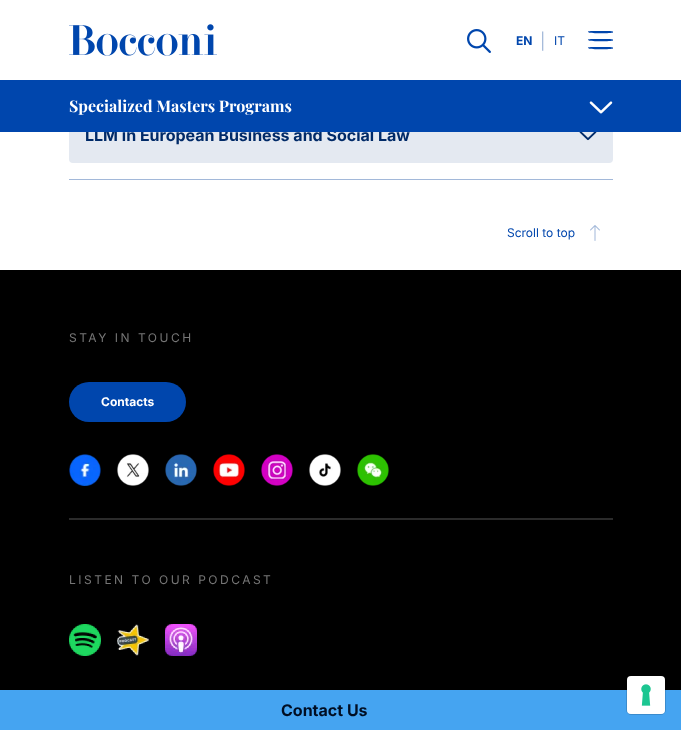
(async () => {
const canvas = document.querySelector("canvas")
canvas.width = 681
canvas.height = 730
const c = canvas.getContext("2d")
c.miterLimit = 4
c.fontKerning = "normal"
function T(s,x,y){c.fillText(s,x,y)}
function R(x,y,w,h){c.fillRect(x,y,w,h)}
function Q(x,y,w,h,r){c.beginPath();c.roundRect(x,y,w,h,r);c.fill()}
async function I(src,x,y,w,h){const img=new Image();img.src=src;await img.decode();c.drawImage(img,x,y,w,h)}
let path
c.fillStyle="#fff"
R(0,0,681,730)
await I("1.png",69,24,148,32)
await I("2.png",467,29,24,24)
c.font="bold 12px Inter"
c.fillStyle="#0046ad"
T("EN",516,45)
c.font="16px Inter"
c.fillStyle="#a2b8d9"
T("|",540,47)
c.font="12px Inter"
c.fillStyle="#0046ad"
T("IT",554,45)
path = new Path2D("M594 31h16l3 .5v1c-1.5 1-22.5 1-24 0c-4-1.5 4-1.5 5-1.5zm0 8h16l3 .5v1c-1.5 1-22.5 1-24 0c-4-1.5 4-1.5 5-1.5zm0 8h16l3 .5v1c-1.5 1-22.5 1-24 0c-4-1.5 4-1.5 5-1.5z")
c.fill(path)
c.fillStyle="#e4e9f1"
Q(69,107,544,56,4)
c.font="bold 16px Inter"
c.fillStyle="#002a68"
T("LLM in European Business and Social Law",85,141)
c.fillStyle="#0046ad"
R(0,80,681,52)
c.font="bold 16px Playfair Display"
c.fillStyle="#fff"
T("Specialized Masters Programs",69,112)
await I("3.png",589,101,24,13)
c.fillStyle="#a2b8d9"
R(69,179,544,1)
await I("4.png",579,132,18,9)
c.font="12px Inter"
c.fillStyle="#0046ad"
T("Scroll to top",507,237)
await I("5.png",590,225,10,16)
c.fillStyle="#000"
R(0,270,681,420)
c.letterSpacing="2.5px"
c.fillStyle="#767676"
T("STAY IN TOUCH",69,342)
c.fillStyle="#0046ad"
Q(69,382,117,40,20)
c.letterSpacing="0px"
c.font="bold 12px Inter"
c.fillStyle="#fff"
T("Contacts",101,406)
await I("6.png",69,454,32,32)
await I("7.png",117,454,32,32)
await I("8.png",165,454,32,32)
await I("9.png",213,454,32,32)
await I("10.png",261,454,32,32)
await I("11.png",309,454,32,32)
await I("12.png",357,454,32,32)
c.fillStyle="#2b2b2b"
R(69,518,544,2)
c.letterSpacing="2.5px"
c.font="12px Inter"
c.fillStyle="#767676"
T("LISTEN TO OUR PODCAST",69,584)
await I("13.png",69,624,32,32)
await I("14.png",117,624,32,32)
await I("15.png",165,624,32,32)
c.fillStyle="#45a4f1"
R(0,690,681,40)
c.letterSpacing="0px"
c.font="bold 16px Inter"
c.fillStyle="#000e23"
T("Contact Us",281,716)
c.beginPath()
c.roundRect(626.5,675.5,39,39,4.5)
c.strokeStyle="#00000026"
c.stroke()
c.fillStyle="#fff"
Q(627,676,38,38,4)
await I("16.png",641,684,10,22)
})()
